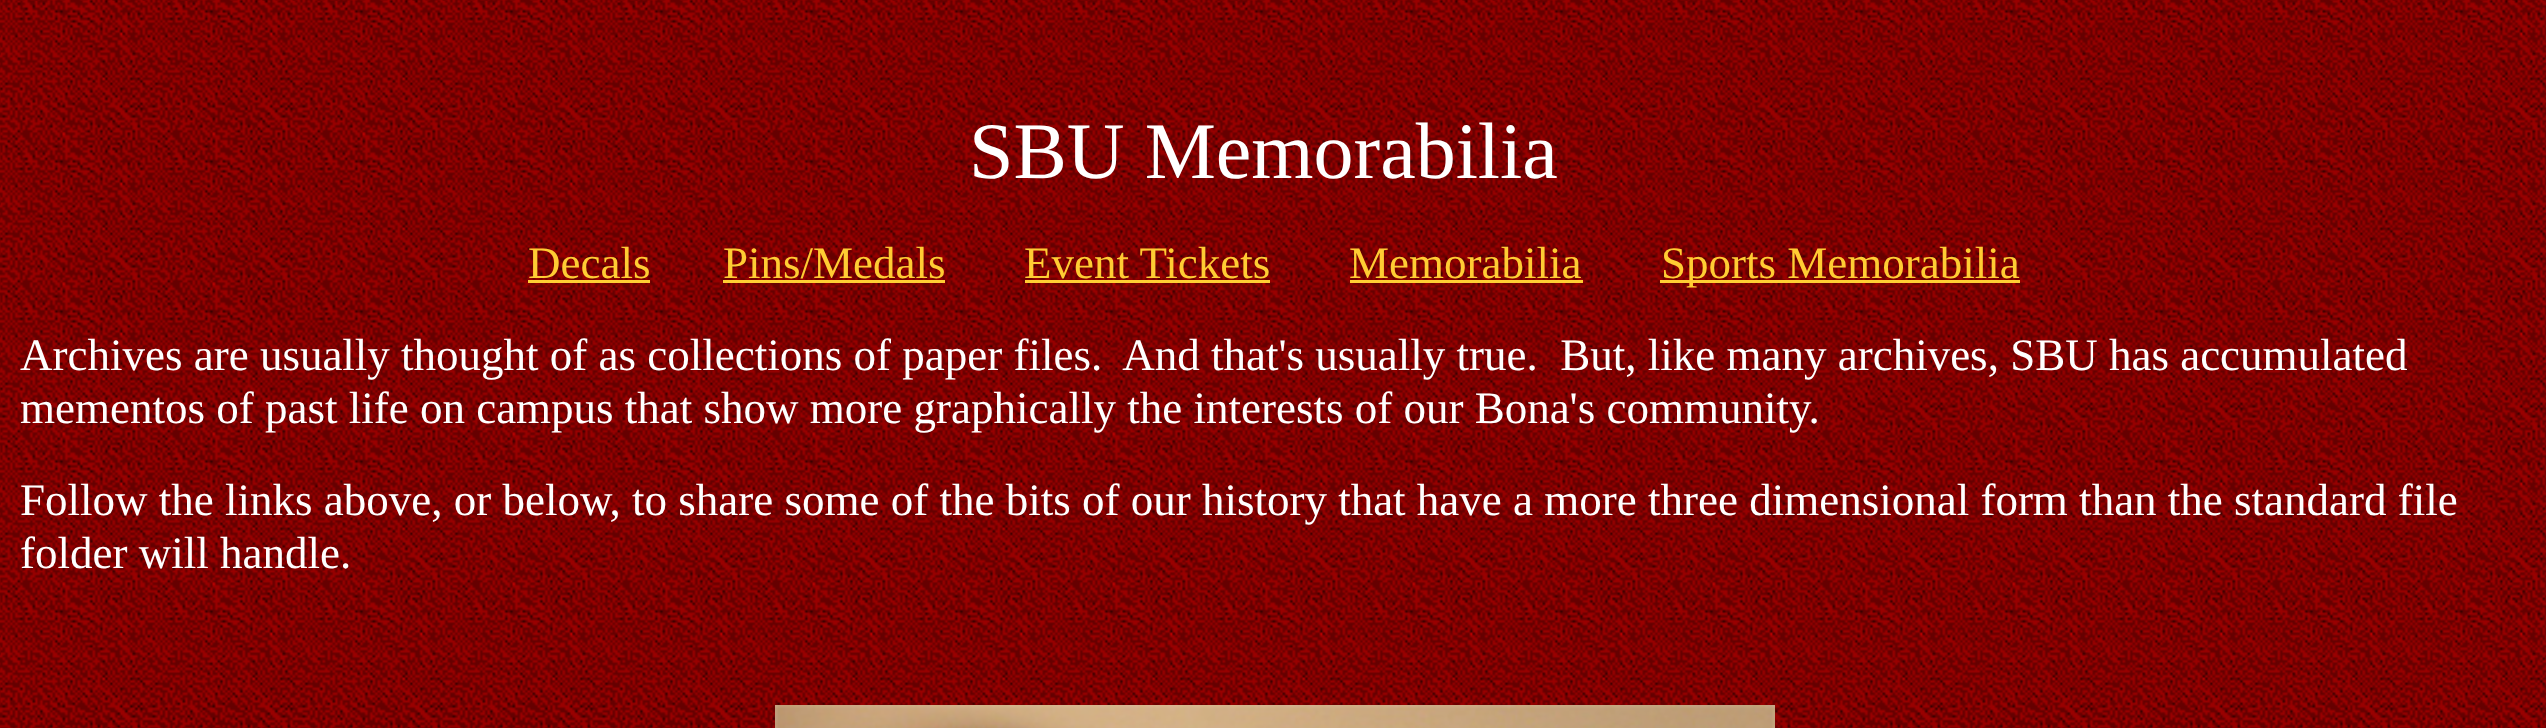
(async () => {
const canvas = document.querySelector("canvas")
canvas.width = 2546
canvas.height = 728
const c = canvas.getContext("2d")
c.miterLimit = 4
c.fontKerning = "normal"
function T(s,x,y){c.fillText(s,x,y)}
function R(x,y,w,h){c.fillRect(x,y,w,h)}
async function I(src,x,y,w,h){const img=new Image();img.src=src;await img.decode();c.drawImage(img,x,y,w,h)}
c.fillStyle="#fff"
R(0,0,2546,728)
await I("1.png",0,0,2546,728)
c.font="80px Liberation Serif"
T("SBU Memorabilia",969,178)
c.font="45px Liberation Serif"
c.fillStyle="#fc3"
T("Decals",528,278)
R(528,280,122,3)
T("Pins/Medals",723,278)
R(723,280,222,3)
T("Event Tickets",1024,278)
R(1025,280,245,3)
T("Memorabilia",1349,278)
R(1350,280,233,3)
R(1660,280,360,3)
T("Sports Memorabilia",1661,278)
c.fillStyle="#fff"
T("Archives are usually thought of as collections of paper files.  And that's usually true.  But, like many archives, SBU has accumulated",20,370)
T("mementos of past life on campus that show more graphically the interests of our Bona's community.",20,423)
T("Follow the links above, or below, to share some of the bits of our history that have a more three dimensional form than the standard file",20,515)
T("folder will handle.",20,568)
await I("2.png",775,705,1000,23)
})()
